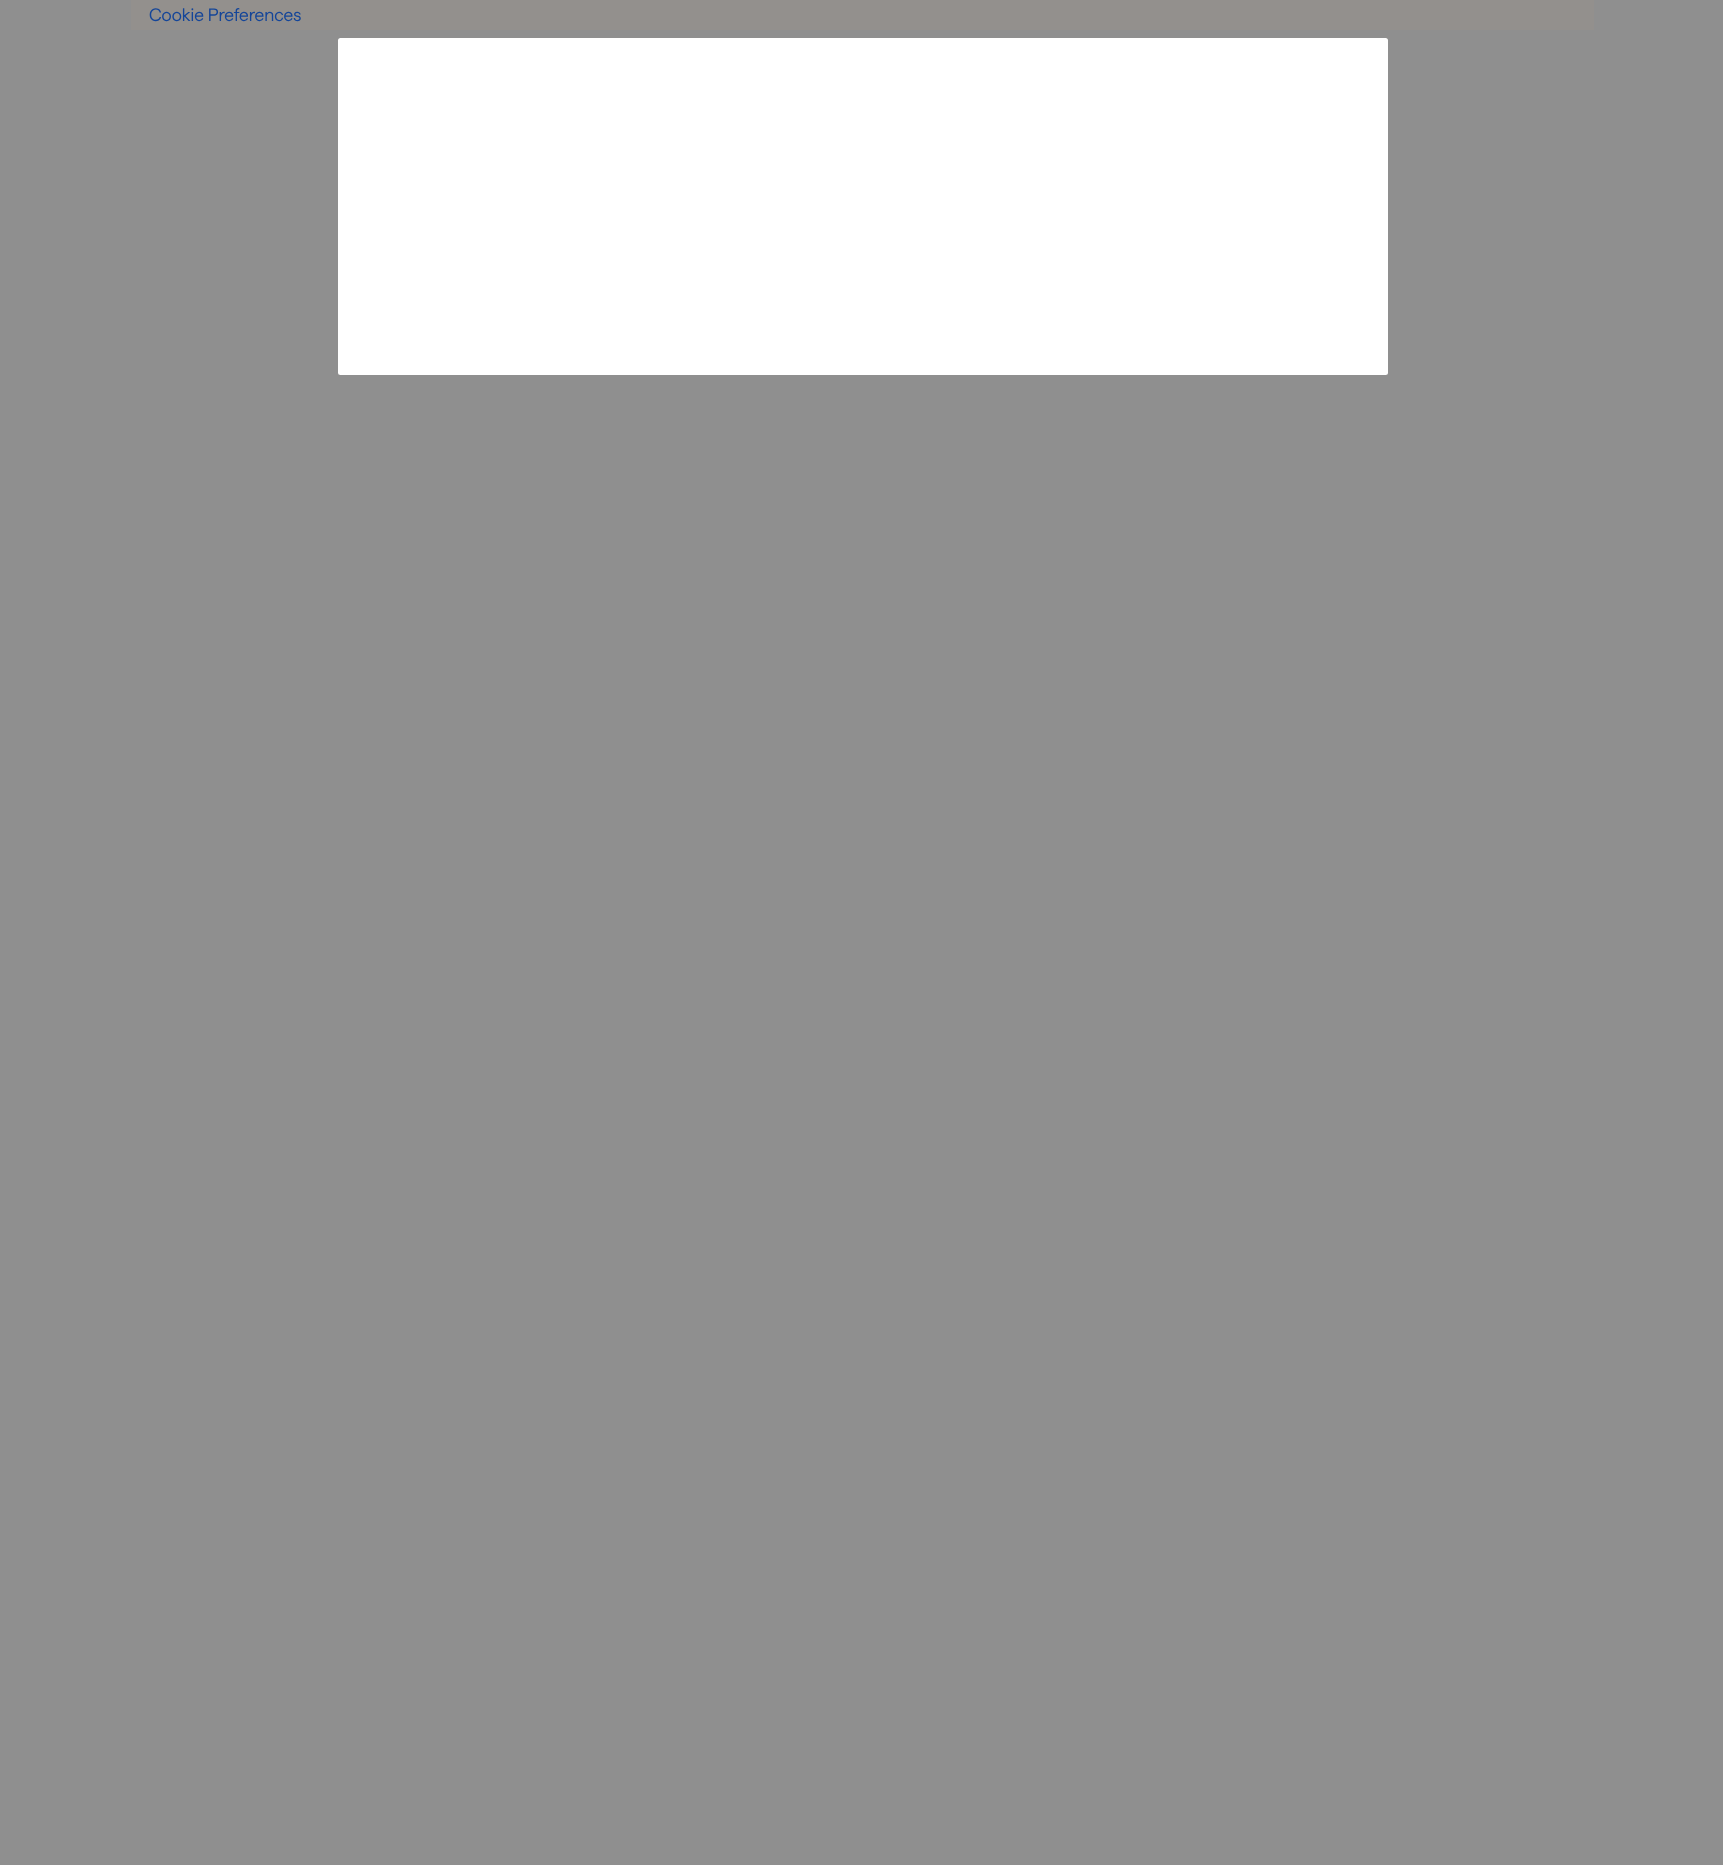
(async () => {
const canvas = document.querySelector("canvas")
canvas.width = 1723
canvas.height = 1865
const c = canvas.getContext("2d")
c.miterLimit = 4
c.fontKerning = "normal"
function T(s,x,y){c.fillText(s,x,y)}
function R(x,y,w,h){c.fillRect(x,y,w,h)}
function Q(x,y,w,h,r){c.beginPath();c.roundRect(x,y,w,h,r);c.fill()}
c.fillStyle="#8f8f8f"
R(0,0,1723,1865)
c.fillStyle="#93908d"
R(131,0,1463,30)
c.font="17.5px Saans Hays"
c.fillStyle="#144599"
T("Cookie Preferences",149,21)
c.fillStyle="#fff"
Q(338,38,1050,337,2.5)
})()
